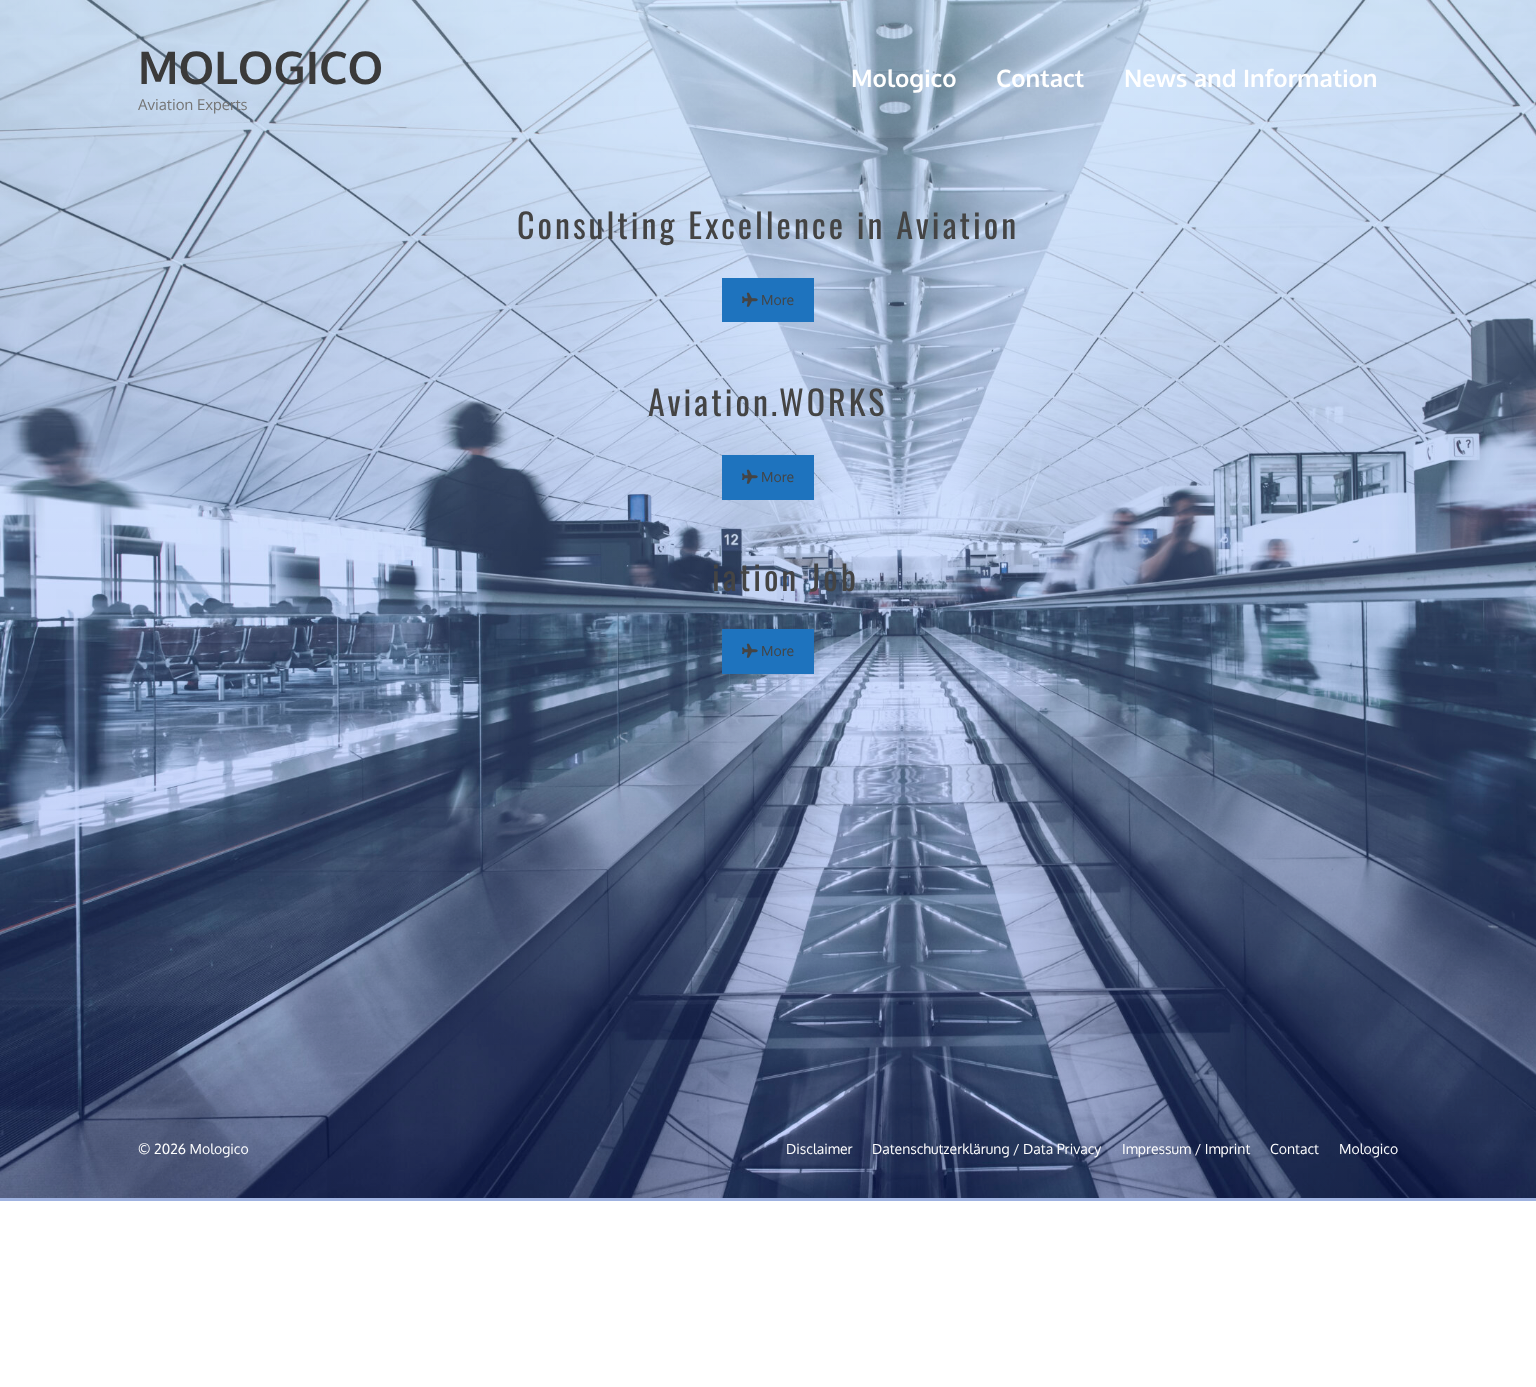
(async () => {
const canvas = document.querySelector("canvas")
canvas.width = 1536
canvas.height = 1387
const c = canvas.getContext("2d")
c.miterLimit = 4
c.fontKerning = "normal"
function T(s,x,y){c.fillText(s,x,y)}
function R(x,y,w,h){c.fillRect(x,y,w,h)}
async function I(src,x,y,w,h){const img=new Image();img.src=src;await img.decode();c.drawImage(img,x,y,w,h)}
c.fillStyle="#fff"
R(0,0,1536,1387)
await I("1.png",0,0,1536,1198)
c.font="bold 45px Oxygen"
c.fillStyle="#3a3a3a"
T("MOLOGICO",138,84)
c.font="15px Oxygen"
c.fillStyle="#757575"
T("Aviation Experts",138,110)
c.font="bold 24px Oxygen"
c.fillStyle="#fff"
T("Mologico",851,87)
T("Contact",996,87)
T("News and Information",1124,87)
c.letterSpacing="3px"
c.font="34px Oswald"
c.fillStyle="#444"
T("Consulting Excellence in Aviation",517,239)
c.fillStyle="#1e73be"
R(722,278,92,44)
await I("2.png",742,292,16,15)
c.letterSpacing="0px"
c.font="14px Oxygen"
c.fillStyle="#444"
T("More",761,305)
c.letterSpacing="3px"
c.font="34px Oswald"
T("Aviation.WORKS",648,416)
c.fillStyle="#1e73be"
R(722,455,92,45)
await I("2.png",742,469,16,15)
c.letterSpacing="0px"
c.font="14px Oxygen"
c.fillStyle="#444"
T("More",761,482)
c.letterSpacing="3px"
c.font="34px Oswald"
T("iation Job",712,591)
c.fillStyle="#1e73be"
R(722,629,92,45)
await I("2.png",742,643,16,15)
c.letterSpacing="0px"
c.font="14px Oxygen"
c.fillStyle="#444"
T("More",761,656)
c.fillStyle="#9fb2e0"
R(0,1198,1536,3)
c.fillStyle="#fff"
T("© 2026 Mologico",138,1154)
T("Disclaimer",786,1154)
T("Datenschutzerklärung / Data Privacy",872,1154)
T("Impressum / Imprint",1122,1154)
T("Contact",1270,1154)
T("Mologico",1339,1154)
})()
